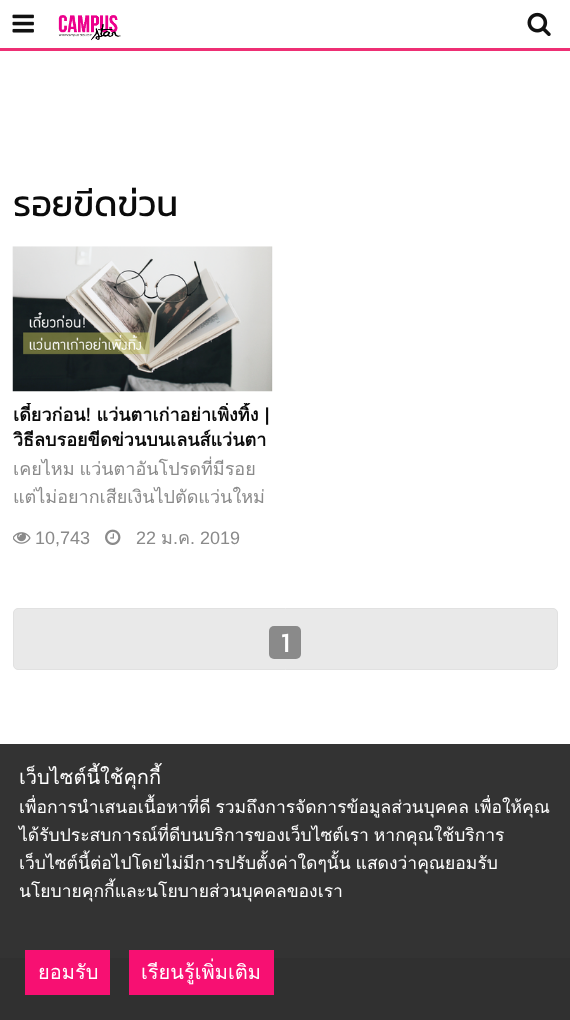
(async () => {
const canvas = document.querySelector("canvas")
canvas.width = 570
canvas.height = 1020
const c = canvas.getContext("2d")
c.miterLimit = 4
c.fontKerning = "normal"
function T(s,x,y){c.fillText(s,x,y)}
function R(x,y,w,h){c.fillRect(x,y,w,h)}
function Q(x,y,w,h,r){c.beginPath();c.roundRect(x,y,w,h,r);c.fill()}
async function I(src,x,y,w,h){const img=new Image();img.src=src;await img.decode();c.drawImage(img,x,y,w,h)}
c.fillStyle="#fff"
R(0,0,570,1020)
c.fillStyle="#333"
R(0,744,570,214)
c.fillStyle="#ee2f74"
R(0,48,570,3)
await I("1.png",12,14,22,19)
await I("2.png",58,15,63,26)
await I("3.png",527,12,24,24)
c.font="36px Kanit"
c.fillStyle="#0a0a0a"
T("รอยขีดข่วน",13,216)
await I("4.png",12,246,261,146)
c.save()
c.beginPath()
c.rect(13,403,260,47)
c.clip()
c.font="bold 18px Loma"
T("เดี๋ยวก่อน! แว่นตาเก่าอย่าเพิ่งทิ้ง |",13,421)
T("วิธีลบรอยขีดข่วนบนเลนส์แว่นตา",13,446)
c.restore()
c.wordSpacing="-1px"
c.font="18px Loma"
c.fillStyle="#8a8a8a"
T("เคยไหม แว่นตาอันโปรดที่มีรอย",13,475)
c.wordSpacing="0px"
T("แต่ไม่อยากเสียเงินไปตัดแว่นใหม่",13,503)
await I("5.png",13,532,18,12)
c.font="18px Liberation Sans"
T("10,743",35,544)
await I("6.png",105,529,16,16)
T("22",136,544)
c.font="18px Loma"
T("ม",161,544)
c.font="18px Liberation Sans"
T(".",173,544)
c.font="18px Loma"
T("ค",178,544)
c.font="18px Liberation Sans"
T(". 2019",190,544)
c.fillStyle="#e9e9e9"
c.beginPath()
c.roundRect(13.5,608.5,544,61,4.5)
c.fill()
c.strokeStyle="#e1e1e1"
c.stroke()
c.fillStyle="#8a8a8a"
Q(269,626,32,33,5)
c.font="28px Kanit"
c.fillStyle="#fff"
T("1",281,652)
c.font="20px Loma"
T("เว็บไซต์นี้ใช้คุกกี้",19,784)
c.wordSpacing="-1px"
c.font="17.5px Loma"
T("เพื่อการนำเสนอเนื้อหาที่ดี รวมถึงการจัดการข้อมูลส่วนบุคคล เพื่อให้คุณ",19,813)
T("ได้รับประสบการณ์ที่ดีบนบริการของเว็บไซต์เรา หากคุณใช้บริการ",19,841)
T("เว็บไซต์นี้ต่อไปโดยไม่มีการปรับตั้งค่าใดๆนั้น แสดงว่าคุณยอมรับ",19,869)
c.wordSpacing="0px"
T("นโยบายคุกกี้และนโยบายส่วนบุคคลของเรา",19,897)
c.fillStyle="#303030"
R(0,958,570,62)
c.fillStyle="#f71072"
R(25,950,85,45)
c.font="20px Loma"
c.fillStyle="#fff"
T("ยอมรับ",38,979)
c.fillStyle="#f71072"
R(129,950,145,45)
c.fillStyle="#fff"
T("เรียนรู้เพิ่มเติม",141,979)
})()
